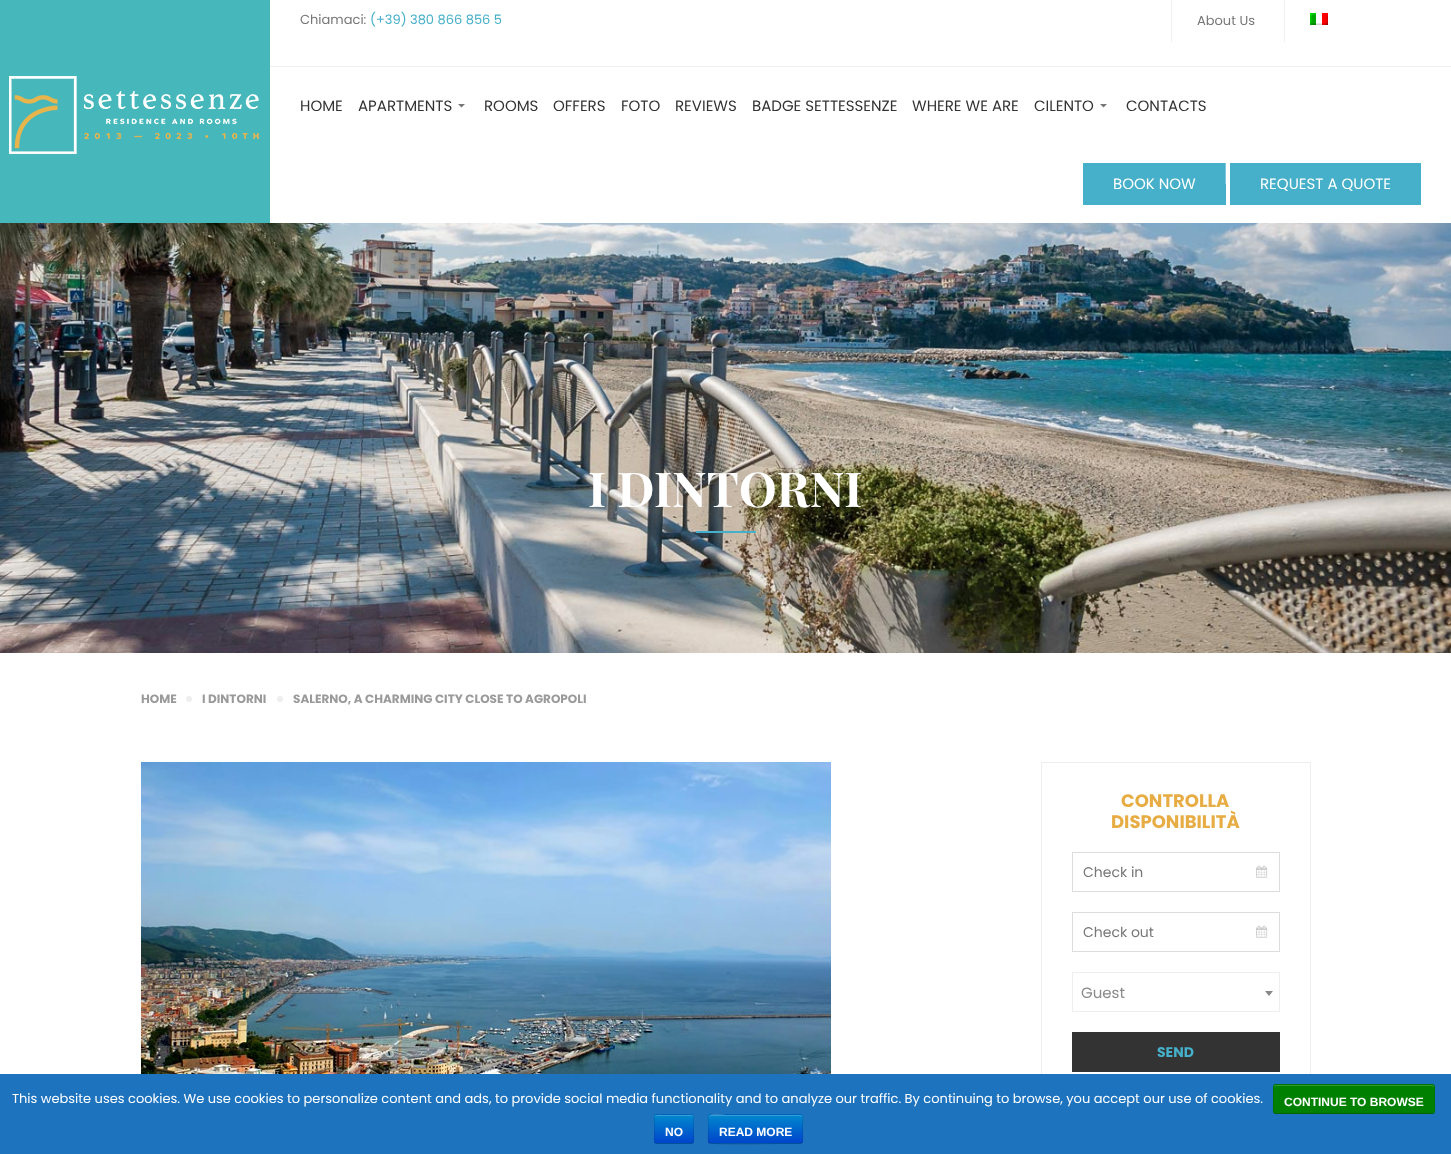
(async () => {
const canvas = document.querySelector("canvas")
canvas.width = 1451
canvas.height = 1154
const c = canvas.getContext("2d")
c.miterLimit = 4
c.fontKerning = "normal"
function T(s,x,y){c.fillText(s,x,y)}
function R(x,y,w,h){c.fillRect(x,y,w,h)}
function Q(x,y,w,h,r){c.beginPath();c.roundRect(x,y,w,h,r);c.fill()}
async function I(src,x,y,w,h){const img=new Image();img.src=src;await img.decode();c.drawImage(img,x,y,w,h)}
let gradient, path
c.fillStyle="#fff"
R(0,0,1451,1154)
c.fillStyle="#46b7bb"
R(0,0,270,223)
await I("1.png",9,76,250,78)
c.fillStyle="#f0f0f0"
R(270,66,1181,1)
c.font="13px Poppins"
c.fillStyle="#777"
T("Chiamaci:",300,24)
c.fillStyle="#46b0ca"
T("(+39) 380 866 856 5",370,24)
c.fillStyle="#f0f0f0"
R(1171,0,1,42)
c.fillStyle="#777"
T("About Us",1197,25)
c.fillStyle="#f0f0f0"
R(1284,0,1,42)
await I("2.png",1310,13,18,12)
c.font="15px Poppins"
c.fillStyle="#333"
T("HOME",300,111)
T("APARTMENTS",358,111)
c.fillStyle="#777"
path = new Path2D("M458 104h7l-3.5 3.5z")
c.fill(path)
c.fillStyle="#333"
T("ROOMS",484,111)
T("OFFERS",553,111)
T("FOTO",621,111)
T("REVIEWS",675,111)
T("BADGE SETTESSENZE",752,111)
T("WHERE WE ARE",912,111)
T("CILENTO",1034,111)
c.fillStyle="#777"
path = new Path2D("M1100 104h7l-3.5 3.5z")
c.fill(path)
c.fillStyle="#333"
T("CONTACTS",1126,111)
c.fillStyle="#46b0ca"
R(1083,163,143,42)
c.fillStyle="#fff"
T("BOOK NOW",1113,189)
c.fillStyle="#7ec8da"
R(1225,163,1,21)
c.fillStyle="#46b0ca"
R(1230,163,191,42)
c.fillStyle="#fff"
T("REQUEST A QUOTE",1260,189)
await I("3.png",0,223,1451,430)
c.font="bold 48px Playfair Display"
T("I DINTORNI",588,507)
c.fillStyle="#46b0ca"
R(696,531,60,2)
c.font="bold 12px Poppins"
c.fillStyle="#9a9a9a"
T("HOME",141,703)
c.fillStyle="#eee"
c.beginPath()
c.arc(189,699,3,0,7)
c.fill()
c.fillStyle="#9a9a9a"
T("I DINTORNI",202,703)
c.fillStyle="#eee"
c.beginPath()
c.arc(280,699,3,0,7)
c.fill()
c.fillStyle="#9a9a9a"
T("SALERNO, A CHARMING CITY CLOSE TO AGROPOLI",293,703)
await I("4.png",141,762,690,312)
c.strokeStyle="#eee"
c.strokeRect(1041.5,762.5,269,340)
c.font="bold 18px Poppins"
c.fillStyle="#e7ad44"
T("CONTROLLA",1121,807)
T("DISPONIBILITÀ",1111,828)
await I("5.png",1256,865,12,13)
c.strokeStyle="#ddd"
c.strokeRect(1072.5,852.5,207,39)
c.font="14px Poppins"
c.fillStyle="#777"
T("Check in",1083,877)
await I("5.png",1256,925,12,13)
c.strokeRect(1072.5,912.5,207,39)
T("Check out",1083,937)
c.strokeStyle="#eee"
c.strokeRect(1072.5,972.5,207,39)
c.font="15px Poppins"
c.fillStyle="#8a8a8a"
T("Guest",1081,998)
c.fillStyle="#888"
path = new Path2D("M1265 991h8l-4 5z")
c.fill(path)
c.fillStyle="#333"
R(1072,1032,208,40)
c.font="bold 14px Poppins"
c.fillStyle="#46b0ca"
T("SEND",1157,1057)
c.fillStyle="#1e73be"
R(0,1074,1451,80)
c.font="13px Poppins"
c.fillStyle="#fff"
T("This website uses cookies. We use cookies to personalize content and ads, to provide social media functionality and to analyze our traffic. By continuing to browse, you accept our use of cookies.",12,1103)
c.fillStyle="#008000"
Q(1273,1084,162,30,3)
c.fillStyle="#393"
path = new Path2D("M1276 1086h156c1 0 2 1 2 2c0-1 0-3-2-3h-156c-2 0-2 2-2 3c0-1 1-2 2-2z")
c.fill(path)
path = new Path2D("M1434 1113l-2 .5h-156l-2-.5")
c.strokeStyle="#00000040"
c.stroke(path)
path = new Path2D("M1274 1113c-1.5-2-.5-11.5-.5-14v-8c0-2-1-6.5 2.5-6.5h156c3.5 0 2.5 4.5 2.5 6.5v8c0 2.5 1 12-.5 14")
c.strokeStyle="#0000001a"
c.stroke(path)
c.font="bold 12px Liberation Sans"
c.fillStyle="#fff"
T("CONTINUE TO BROWSE",1284,1106)
c.fillStyle="#006dcc"
Q(654,1114,40,30,3)
c.save()
c.beginPath()
c.roundRect(654,1114,40,30,3)
c.clip()
gradient = c.createLinearGradient(674,1115,674,1143)
gradient.addColorStop(0,"#08c")
gradient.addColorStop(1,"#04c")
c.fillStyle = gradient
R(654,1115,40,28)
c.restore()
c.fillStyle="#ffffff33"
path = new Path2D("M657 1116h34c1 0 2 1 2 2c0-4.5-3.5-3-7.5-3h-23c-4 0-7.5-1.5-7.5 3c0-1 1-2 2-2z")
c.fill(path)
path = new Path2D("M693 1143l-2 .5h-34l-2-.5")
c.strokeStyle="#00000040"
c.stroke(path)
path = new Path2D("M655 1143c-1-1.5-.5-4.5-.5-6v-16c0-7.5 .5-6.5 8-6.5h23c7.5 0 8-1 8 6.5v16c0 1.5 .5 4.5-.5 6")
c.strokeStyle="#0000001a"
c.stroke(path)
c.fillStyle="#fff"
T("NO",665,1136)
c.fillStyle="#006dcc"
Q(708,1114,95,30,3)
c.save()
c.beginPath()
c.roundRect(708,1114,95,30,3)
c.clip()
gradient = c.createLinearGradient(756,1115,756,1143)
gradient.addColorStop(0,"#08c")
gradient.addColorStop(1,"#04c")
c.fillStyle = gradient
R(708,1115,95,28)
c.restore()
c.fillStyle="#ffffff33"
path = new Path2D("M711 1116h89c1 0 2 1 2 2c0-1 0-3-2-3h-74c-2 0-17-4-17 3c0-1 1-2 2-2z")
c.fill(path)
path = new Path2D("M802 1143l-2 .5h-15c-7.5 0-73.5 1-75.5-.5h-.5")
c.strokeStyle="#00000040"
c.stroke(path)
path = new Path2D("M709 1143c-1.5-2-.5-11.5-.5-14c0-18.5-3-14.5 17.5-14.5h59c22 0 17.5-3.5 17.5 18.5c0 2 1 8-.5 10")
c.strokeStyle="#0000001a"
c.stroke(path)
c.fillStyle="#fff"
T("READ MORE",719,1136)
})()
